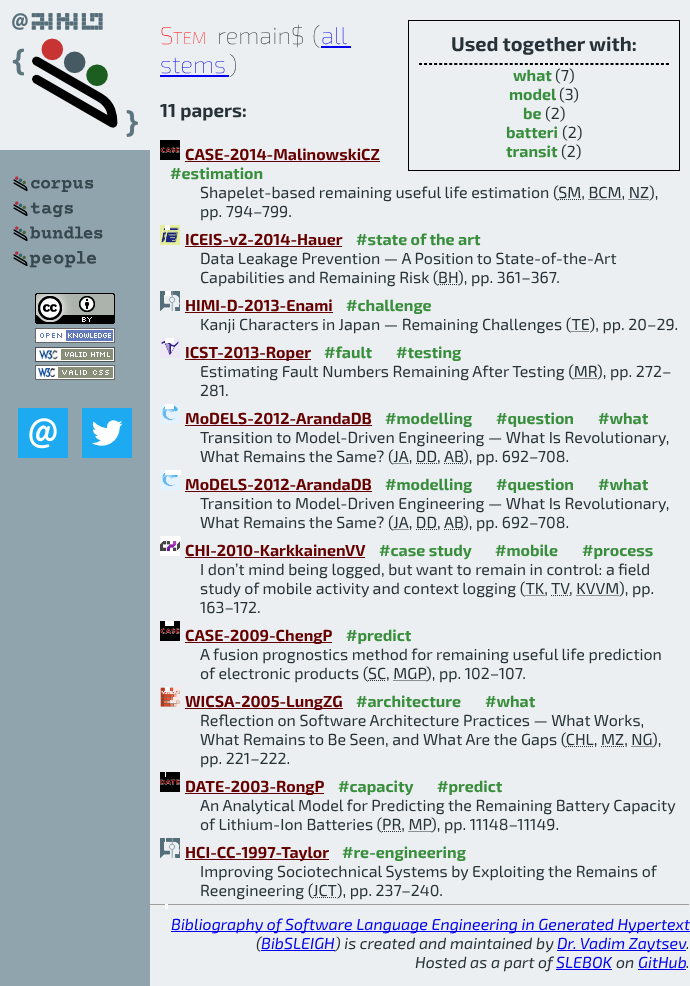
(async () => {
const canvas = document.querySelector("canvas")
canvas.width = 690
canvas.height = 986
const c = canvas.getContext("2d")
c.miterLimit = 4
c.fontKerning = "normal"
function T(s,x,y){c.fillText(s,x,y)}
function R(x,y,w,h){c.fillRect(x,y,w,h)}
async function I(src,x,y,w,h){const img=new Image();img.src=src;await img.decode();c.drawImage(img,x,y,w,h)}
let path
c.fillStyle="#eceff1"
R(0,0,690,986)
c.fillStyle="#90a4ae"
R(0,150,150,836)
await I("1.png",0,0,150,150)
await I("2.png",13,176,81,16)
await I("3.png",13,201,60,17)
await I("4.png",13,226,90,16)
await I("5.png",13,251,84,17)
await I("6.png",35,293,80,31)
await I("7.png",35,328,80,15)
await I("8.png",35,347,80,15)
await I("9.png",35,365,80,15)
await I("10.png",18,408,50,50)
await I("11.png",82,408,50,50)
c.font="100 24px 'Exo 2'"
c.fillStyle="#f00"
T("S",160,44)
c.font="100 17px 'Exo 2'"
T("TEM",173,44)
c.wordSpacing="2px"
c.font="100 24px 'Exo 2'"
c.fillStyle="#263238"
T("remain$ (",217,44)
c.wordSpacing="0px"
c.fillStyle="#00e"
T("all",321,44)
R(321,46,30,2)
T("stems",160,73)
R(160,75,69,2)
c.fillStyle="#263238"
T(")",229,73)
c.strokeStyle="#000"
c.strokeRect(408.5,20.5,271,150)
c.font="bold 20px 'Exo 2'"
T("Used together with:",451,51)
path = new Path2D("M419 63.5h250")
c.setLineDash([3,2.04])
c.stroke(path)
c.fillStyle="#000"
R(668,63,1,2)
path = new Path2D("M419 64.5h250")
c.stroke(path)
c.font="bold 16px 'Exo 2'"
c.fillStyle="#388e3c"
T("what",513,81)
c.font="16px 'Exo 2'"
c.fillStyle="#263238"
T("(7)",555,81)
c.font="bold 16px 'Exo 2'"
c.fillStyle="#388e3c"
T("model",509,100)
c.font="16px 'Exo 2'"
c.fillStyle="#263238"
T("(3)",559,100)
c.font="bold 16px 'Exo 2'"
c.fillStyle="#388e3c"
T("be",523,119)
c.font="16px 'Exo 2'"
c.fillStyle="#263238"
T("(2)",545,119)
c.font="bold 16px 'Exo 2'"
c.fillStyle="#388e3c"
T("batteri",506,138)
c.font="16px 'Exo 2'"
c.fillStyle="#263238"
T("(2)",562,138)
c.font="bold 16px 'Exo 2'"
c.fillStyle="#388e3c"
T("transit",506,157)
c.font="16px 'Exo 2'"
c.fillStyle="#263238"
T("(2)",561,157)
c.font="bold 18.75px 'Exo 2'"
T("11 papers:",160,117)
await I("12.png",160,140,20,20)
c.font="bold 16px 'Exo 2'"
c.fillStyle="#600"
T("CASE-2014-MalinowskiCZ",185,160)
R(185,161,195,1)
c.fillStyle="#388e3c"
T("#estimation",170,179)
c.font="16px 'Exo 2'"
c.fillStyle="#263238"
T("Shapelet-based remaining useful life estimation (SM, BCM, NZ),",200,198)
path = new Path2D("M558 199.5h23")
c.strokeStyle="#263238"
c.setLineDash([1,1])
c.stroke(path)
path = new Path2D("M588.5 199.5h33m7 0h20.5")
c.stroke(path)
T("pp. 794–799.",200,217)
await I("13.png",160,225,20,20)
c.fillStyle="#fff"
R(165,225,5,5)
c.font="bold 16px 'Exo 2'"
c.fillStyle="#600"
T("ICEIS-v2-2014-Hauer",185,245)
R(185,246,157,1)
c.fillStyle="#388e3c"
T("#state of the art",356,245)
c.font="16px 'Exo 2'"
c.fillStyle="#263238"
T("Data Leakage Prevention — A Position to State-of-the-Art",200,264)
T("Capabilities and Remaining Risk (BH",200,283)
path = new Path2D("M438 284.5h20.5")
c.stroke(path)
T("), pp. 361–367.",458,283)
await I("14.png",160,291,20,20)
c.fillStyle="#fff"
R(165,291,6,5)
c.font="bold 16px 'Exo 2'"
c.fillStyle="#600"
T("HIMI-D-2013-Enami",185,311)
R(185,312,148,1)
c.fillStyle="#388e3c"
T("#challenge",346,311)
c.font="16px 'Exo 2'"
c.fillStyle="#263238"
T("Kanji Characters in Japan — Remaining Challenges (TE), pp. 20–29.",200,330)
path = new Path2D("M571.5 331.5h18")
c.stroke(path)
await I("15.png",160,338,20,20)
c.fillStyle="#fff"
R(165,338,9,5)
c.fillStyle="#600"
R(185,359,126,1)
c.font="bold 16px 'Exo 2'"
T("ICST-2013-Roper",185,358)
c.fillStyle="#388e3c"
T("#fault",324,358)
T("#testing",396,358)
c.font="16px 'Exo 2'"
c.fillStyle="#263238"
T("Estimating Fault Numbers Remaining After Testing (MR",200,377)
T("), pp. 272–",597,377)
path = new Path2D("M573.5 378.5h23.5")
c.stroke(path)
T("281.",200,396)
await I("16.png",160,404,20,20)
c.fillStyle="#fff"
R(165,404,9,5)
c.font="bold 16px 'Exo 2'"
c.fillStyle="#600"
T("MoDELS-2012-ArandaDB",185,424)
R(185,425,187,1)
c.fillStyle="#388e3c"
T("#modelling",385,424)
T("#question",496,424)
T("#what",598,424)
c.font="16px 'Exo 2'"
c.fillStyle="#263238"
T("Transition to Model-Driven Engineering — What Is Revolutionary,",200,443)
T("What Remains the Same? (JA, DD,",200,462)
T("AB",444,462)
path = new Path2D("M444 463.5h19")
c.stroke(path)
T("), pp. 692–708.",463,462)
path = new Path2D("M393.5 463.5h15m7.5 0h21")
c.stroke(path)
await I("16.png",160,470,20,20)
c.fillStyle="#fff"
R(165,470,16,5)
c.font="bold 16px 'Exo 2'"
c.fillStyle="#600"
T("MoDELS-2012-ArandaDB",185,490)
R(185,491,187,1)
c.fillStyle="#388e3c"
T("#modelling",385,490)
T("#question",496,490)
T("#what",598,490)
c.font="16px 'Exo 2'"
c.fillStyle="#263238"
T("Transition to Model-Driven Engineering — What Is Revolutionary,",200,509)
T("What Remains the Same? (JA, DD,",200,528)
T("AB",444,528)
path = new Path2D("M444 529.5h19")
c.stroke(path)
T("), pp. 692–708.",463,528)
path = new Path2D("M393.5 529.5h15m7.5 0h21")
c.stroke(path)
await I("17.png",160,536,20,20)
c.fillStyle="#fff"
R(177,536,4,5)
c.font="bold 16px 'Exo 2'"
c.fillStyle="#600"
T("CHI-2010-KarkkainenVV",185,556)
R(185,557,180,1)
c.fillStyle="#388e3c"
T("#case study",379,556)
T("#mobile",495,556)
T("#process",582,556)
c.font="16px 'Exo 2'"
c.fillStyle="#263238"
T("I don’t mind being logged, but want to remain in control: a field",200,575)
T("study of mobile activity and context logging (TK,",200,594)
T("TV",551,594)
T(", KVVM",569,594)
T("), pp.",619,594)
path = new Path2D("M525.5 595.5h19m6.5 0h18.5")
c.stroke(path)
path = new Path2D("M576.5 595.5h42.5")
c.stroke(path)
T("163–172.",200,613)
await I("12.png",160,621,20,20)
c.fillStyle="#fff"
R(165,621,9,5)
c.fillStyle="#600"
R(185,642,147,1)
c.font="bold 16px 'Exo 2'"
T("CASE-2009-ChengP",185,641)
c.fillStyle="#388e3c"
T("#predict",346,641)
c.font="16px 'Exo 2'"
c.fillStyle="#263238"
T("A fusion prognostics method for remaining useful life prediction",200,660)
T("of electronic products (",200,679)
path = new Path2D("M368 680.5h18")
c.stroke(path)
T("SC, MGP",368,679)
path = new Path2D("M393.5 680.5h33")
c.stroke(path)
T("), pp. 102–107.",426,679)
await I("18.png",160,687,20,20)
c.fillStyle="#fff"
R(165,687,5,5)
c.fillStyle="#600"
R(185,708,158,1)
c.font="bold 16px 'Exo 2'"
T("WICSA-2005-LungZG",185,707)
c.fillStyle="#388e3c"
T("#architecture",356,707)
T("#what",485,707)
c.font="16px 'Exo 2'"
c.fillStyle="#263238"
T("Reflection on Software Architecture Practices — What Works,",200,726)
T("What Remains to Be Seen, and What Are the Gaps (CHL, MZ, NG",200,745)
path = new Path2D("M631.5 746.5h21")
c.stroke(path)
T("),",652,745)
path = new Path2D("M566 746.5h28m7 0h23")
c.stroke(path)
T("pp. 221–222.",200,764)
await I("19.png",160,772,20,20)
c.fillStyle="#fff"
R(165,772,1,5)
c.fillStyle="#600"
R(185,793,139,1)
c.font="bold 16px 'Exo 2'"
T("DATE-2003-RongP",185,792)
c.fillStyle="#388e3c"
T("#capacity",338,792)
T("#predict",437,792)
c.font="16px 'Exo 2'"
c.fillStyle="#263238"
T("An Analytical Model for Predicting the Remaining Battery Capacity",200,811)
T("of Lithium-Ion Batteries (PR, MP",200,830)
path = new Path2D("M382 831.5h19.5m7 0h23")
c.stroke(path)
T("), pp. 11148–11149.",431,830)
await I("14.png",160,838,20,20)
c.fillStyle="#fff"
R(165,838,1,5)
c.fillStyle="#600"
R(185,859,144,1)
c.font="bold 16px 'Exo 2'"
T("HCI-CC-1997-Taylor",185,858)
c.fillStyle="#388e3c"
T("#re-engineering",342,858)
c.font="16px 'Exo 2'"
c.fillStyle="#263238"
T("Improving Sociotechnical Systems by Exploiting the Remains of",200,877)
T("Reengineering (",200,896)
path = new Path2D("M313 897.5h24")
c.stroke(path)
T("JCT), pp. 237–240.",313,896)
c.fillStyle="#9f9f9f"
R(150,904,540,1)
c.fillStyle="#eee"
R(689,904,1,2)
R(150,905,540,1)
c.fillStyle="#fff"
R(165,904,3,5)
c.fillStyle="#00e"
R(171,931,519,1)
c.font="italic 16px 'Exo 2'"
T("Bibliography of Software Language Engineering in Generated Hypertext",171,930)
c.fillStyle="#263238"
T("(",256,949)
c.fillStyle="#00e"
T("BibSLEIGH",261,949)
R(261,950,74,1)
c.fillStyle="#263238"
T(") is created and maintained by",335,949)
c.fillStyle="#00e"
R(557,950,129,1)
T("Dr. Vadim Zaytsev",557,949)
c.fillStyle="#263238"
T(".",686,949)
T("Hosted as a part of",415,968)
c.fillStyle="#00e"
R(556,969,56,1)
T("SLEBOK",556,968)
c.fillStyle="#263238"
T("on",616,968)
c.fillStyle="#00e"
T("GitHub",638,968)
c.fillStyle="#263238"
T(".",686,968)
c.fillStyle="#00e"
R(638,969,48,1)
})()
